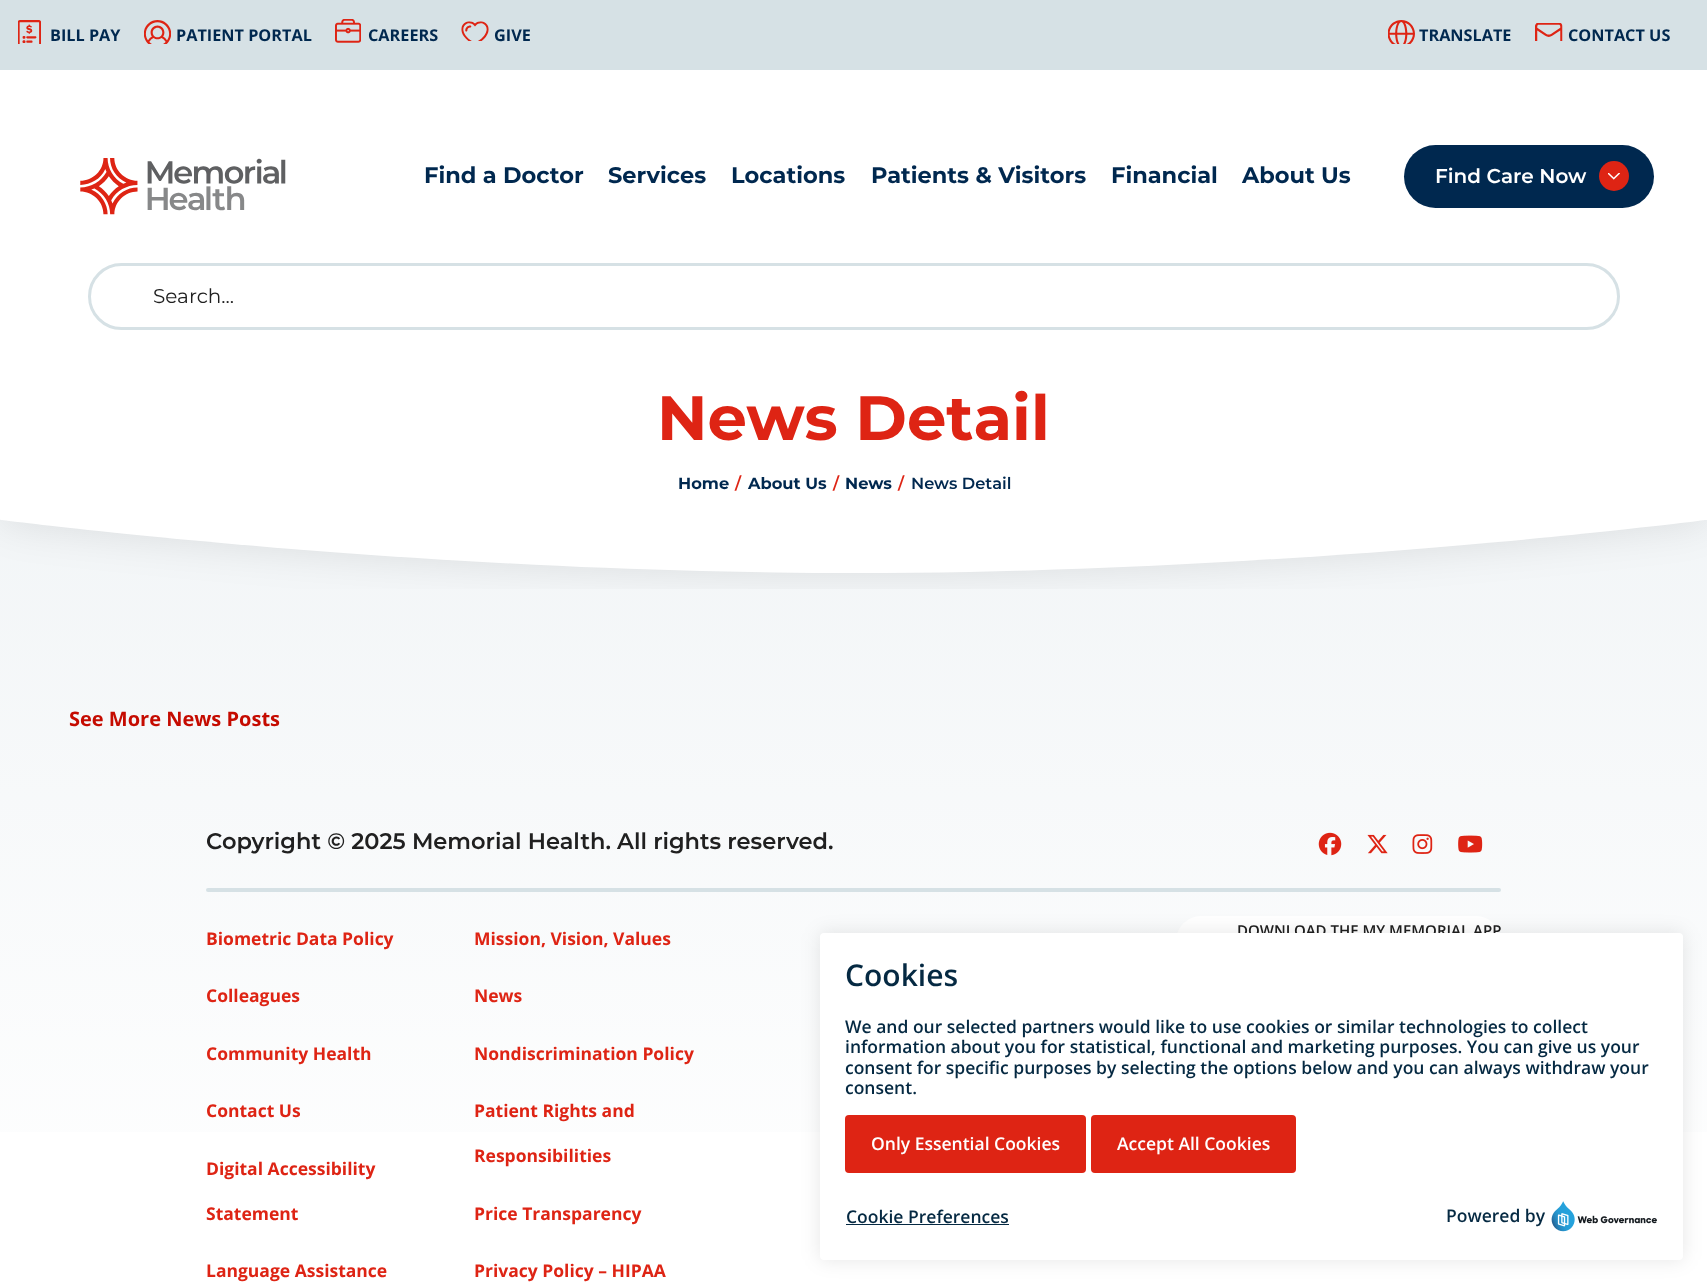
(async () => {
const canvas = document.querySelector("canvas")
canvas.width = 1707
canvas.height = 1285
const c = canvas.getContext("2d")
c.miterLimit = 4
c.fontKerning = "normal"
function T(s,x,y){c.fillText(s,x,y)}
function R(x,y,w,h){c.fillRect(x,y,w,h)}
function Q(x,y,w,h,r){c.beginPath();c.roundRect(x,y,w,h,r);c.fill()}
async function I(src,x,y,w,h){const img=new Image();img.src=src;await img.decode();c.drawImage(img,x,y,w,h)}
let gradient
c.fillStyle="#fff"
R(0,0,1707,1285)
gradient = c.createLinearGradient(854,0,854,1285)
gradient.addColorStop(0,"#eaeff2")
gradient.addColorStop(1,"#fff")
c.fillStyle = gradient
R(0,519,1707,613)
c.fillStyle="#d6e1e5"
R(0,0,1707,70)
await I("1.png",18,20,23,24)
c.font="bold 16.25px Open Sans"
c.fillStyle="#00284f"
T("BILL PAY",50,41)
await I("2.png",144,20,27,24)
T("PATIENT PORTAL",176,41)
await I("3.png",335,19,26,24)
T("CAREERS",368,41)
await I("4.png",461,21,28,20)
T("GIVE",494,41)
await I("5.png",1388,20,27,24)
T("TRANSLATE",1419,41)
await I("6.png",1535,23,28,18)
T("CONTACT US",1568,41)
await I("7.png",80,158,206,57)
c.font="bold 22.5px Montserrat"
T("Find a Doctor",424,183)
T("Services",608,183)
T("Locations",731,183)
T("Patients & Visitors",871,183)
T("Financial",1111,183)
T("About Us",1242,183)
c.beginPath()
c.roundRect(89.5,264.5,1529,64,32)
c.strokeStyle="#d6e1e5"
c.lineWidth=3
c.stroke()
c.font="20px Montserrat"
c.fillStyle="#202020"
T("Search...",153,303)
c.fillStyle="#00284f"
Q(1404,145,250,63,31.5)
c.font="600 20px Montserrat"
c.fillStyle="#fff"
T("Find Care Now",1435,183)
c.fillStyle="#de2414"
c.beginPath()
c.arc(1614,176,15,0,7)
c.fill()
await I("8.png",1608,173,12,7)
c.font="bold 62.5px Montserrat"
T("News Detail",657,440)
c.font="bold 16.25px Montserrat"
c.fillStyle="#00284f"
T("Home",678,489)
c.font="600 16.25px Montserrat"
c.fillStyle="#de2414"
T("/",735,489)
c.font="bold 16.25px Montserrat"
c.fillStyle="#00284f"
T("About Us",748,489)
c.font="600 16.25px Montserrat"
c.fillStyle="#de2414"
T("/",833,489)
c.font="bold 16.25px Montserrat"
c.fillStyle="#00284f"
T("News",845,489)
c.font="600 16.25px Montserrat"
c.fillStyle="#de2414"
T("/",898,489)
c.fillStyle="#00284f"
T("News Detail",911,489)
await I("9.png",0,519,1707,70)
c.font="bold 20px Open Sans"
c.fillStyle="#c50b00"
T("See More News Posts",69,726)
c.font="600 22.5px Montserrat"
c.fillStyle="#202020"
T("Copyright © 2025 Memorial Health. All rights reserved.",206,849)
await I("10.png",1318,832,24,24)
await I("11.png",1367,834,21,20)
await I("12.png",1412,834,21,20)
await I("13.png",1458,835,25,18)
c.fillStyle="#d6e1e5"
Q(206,888,1295,4,2)
c.font="bold 17.5px Open Sans"
c.fillStyle="#de2414"
T("Biometric Data Policy",206,945)
T("Mission, Vision, Values",474,945)
T("Colleagues",206,1002)
T("News",474,1002)
T("Community Health",206,1060)
T("Nondiscrimination Policy",474,1060)
T("Contact Us",206,1117)
T("Patient Rights and",474,1117)
T("Responsibilities",474,1162)
T("Digital Accessibility",206,1175)
T("Statement",206,1220)
T("Price Transparency",474,1220)
T("Language Assistance",206,1277)
T("Privacy Policy – HIPAA",474,1277)
c.fillStyle="#fff"
Q(1176,916,325,98,25)
c.font="600 15px Open Sans"
c.fillStyle="#202020"
T("DOWNLOAD THE MY MEMORIAL APP",1237,936)
c.fillStyle="#0000001a"
c.filter="blur(9.5px)"
c.beginPath()
c.roundRect(820,933,863,327,4)
c.fill()
c.filter="none"
c.fillStyle="#fff"
Q(820,933,863,327,4)
c.font="600 30px Open Sans"
c.fillStyle="#052942"
T("Cookies",845,986)
c.font="600 17.5px Open Sans"
T("We and our selected partners would like to use cookies or similar technologies to collect",845,1033)
T("information about you for statistical, functional and marketing purposes. You can give us your",845,1053)
T("consent for specific purposes by selecting the options below and you can always withdraw your",845,1074)
T("consent.",845,1094)
c.fillStyle="#de2414"
Q(845,1115,241,58,4)
c.fillStyle="#fff"
T("Only Essential Cookies",871,1150)
c.fillStyle="#de2414"
Q(1091,1115,205,58,4)
c.fillStyle="#fff"
T("Accept All Cookies",1117,1150)
c.fillStyle="#052942"
T("Cookie Preferences",846,1223)
R(846,1224,163,1)
T("Powered by",1446,1222)
await I("14.png",1551,1201,106,31)
})()
